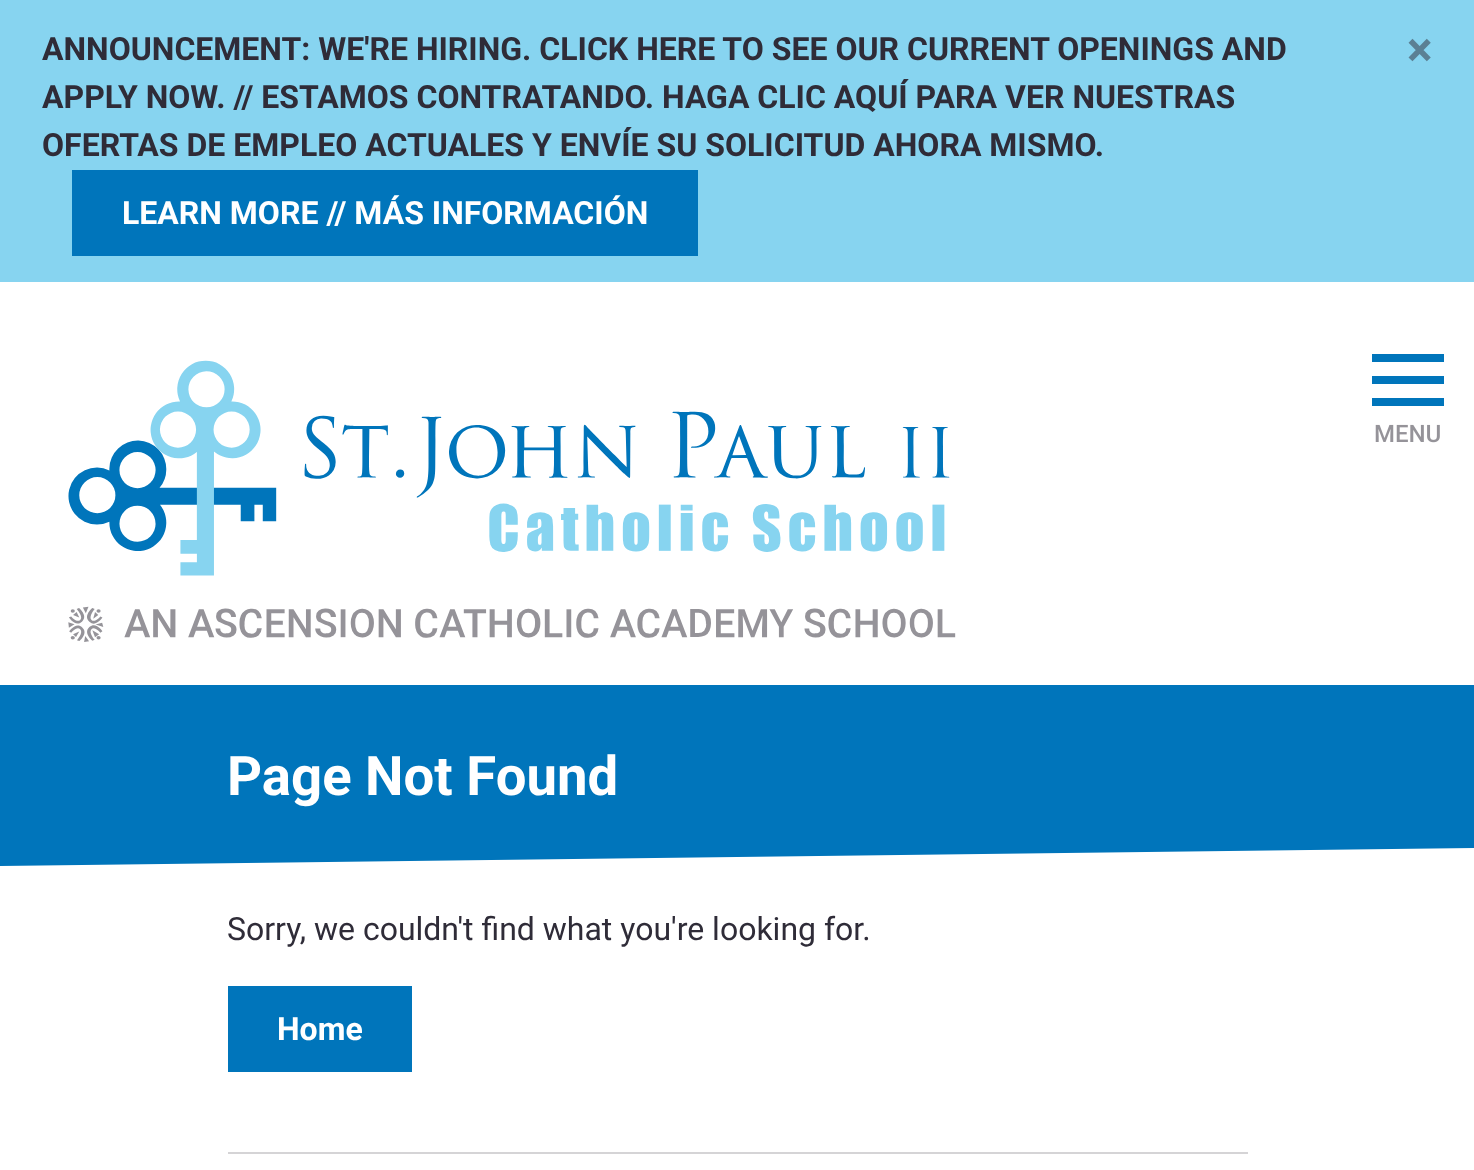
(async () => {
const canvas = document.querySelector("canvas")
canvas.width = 1474
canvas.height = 1170
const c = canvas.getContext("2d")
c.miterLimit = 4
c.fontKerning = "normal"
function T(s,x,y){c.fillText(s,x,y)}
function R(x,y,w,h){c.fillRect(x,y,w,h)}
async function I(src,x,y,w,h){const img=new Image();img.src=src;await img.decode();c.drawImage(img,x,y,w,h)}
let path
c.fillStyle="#fff"
R(0,0,1474,1170)
c.fillStyle="#87d4f0"
R(0,0,1474,282)
c.font="bold 32px Roboto"
c.fillStyle="#2f2c38"
T("ANNOUNCEMENT: WE'RE HIRING. CLICK HERE TO SEE OUR CURRENT OPENINGS AND",42,60)
T("APPLY NOW. // ESTAMOS CONTRATANDO. HAGA CLIC AQUÍ PARA VER NUESTRAS",42,108)
T("OFERTAS DE EMPLEO ACTUALES Y ENVÍE SU SOLICITUD AHORA MISMO.",42,156)
c.fillStyle="#0075bb"
R(72,170,626,86)
c.fillStyle="#fff"
T("LEARN MORE // MÁS INFORMACIÓN",122,224)
c.font="bold 48px Roboto"
c.fillStyle="#5b8094"
T("×",1407,66)
await I("1.png",68,360,888,282)
await I("2.png",1372,354,72,89)
c.fillStyle="#0075bb"
path = new Path2D("M1474 685h-1474v181l1474-18z")
c.fill(path)
c.font="bold 54.5px Roboto"
c.fillStyle="#fff"
T("Page Not Found",227,795)
c.font="32px Roboto"
c.fillStyle="#2f2c38"
T("Sorry, we couldn't find what you're looking for.",227,940)
c.fillStyle="#0075bb"
R(228,986,184,86)
c.font="bold 32px Roboto"
c.fillStyle="#fff"
T("Home",277,1040)
c.fillStyle="#d5d4d6"
R(228,1152,1020,2)
})()
